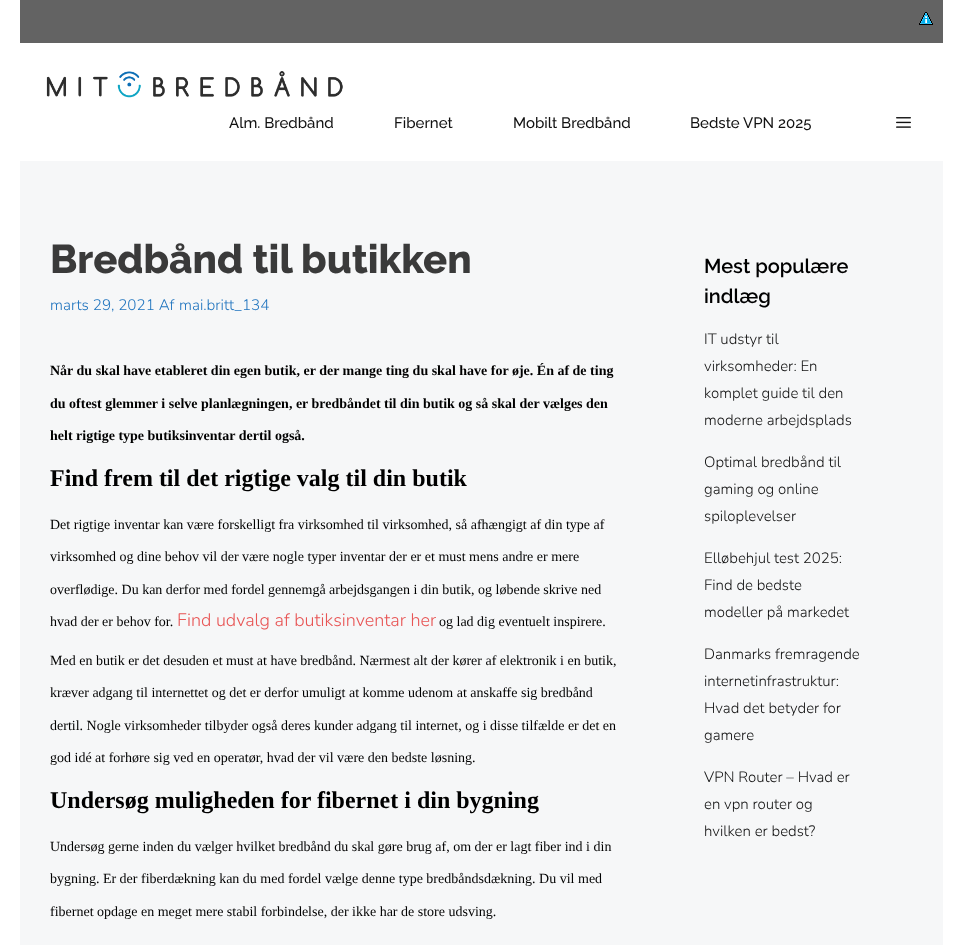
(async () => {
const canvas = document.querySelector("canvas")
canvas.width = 963
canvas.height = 945
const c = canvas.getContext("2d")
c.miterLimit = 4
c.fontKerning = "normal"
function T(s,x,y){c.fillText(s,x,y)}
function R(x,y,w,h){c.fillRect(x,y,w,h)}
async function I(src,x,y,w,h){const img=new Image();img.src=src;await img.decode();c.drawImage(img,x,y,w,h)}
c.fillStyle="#f6f7f8"
R(0,0,963,945)
c.fillStyle="#fff"
R(943,0,20,945)
R(0,0,20,945)
c.fillStyle="#636363"
R(20,0,923,43)
await I("1.png",919,12,14,13)
c.fillStyle="#fff"
R(20,43,923,118)
await I("2.png",46,71,297,27)
c.font="500 15px Raleway"
c.fillStyle="#111"
T("Alm. Bredbånd",229,128)
T("Fibernet",394,128)
T("Mobilt Bredbånd",513,128)
T("Bedste VPN 2025",690,128)
await I("3.png",896,117,15,11)
c.font="800 40px Raleway"
c.fillStyle="#3a3a3a"
T("Bredbånd til butikken",50,273)
c.font="300 15.25px Nunito"
c.fillStyle="#1e73be"
T("marts 29, 2021 Af",50,310)
T("mai.britt_134",179,310)
c.font="bold 14px Liberation Serif"
c.fillStyle="#000"
T("Når du skal have etableret din egen butik, er der mange ting du skal have for øje. Én af de ting",50,375)
T("du oftest glemmer i selve planlægningen, er bredbåndet til din butik og så skal der vælges den",50,408)
T("helt rigtige type butiksinventar dertil også.",50,440)
c.font="bold 24px Liberation Serif"
T("Find frem til det rigtige valg til din butik",50,486)
c.font="14px Liberation Serif"
T("Det rigtige inventar kan være forskelligt fra virksomhed til virksomhed, så afhængigt af din type af",50,529)
T("virksomhed og dine behov vil der være nogle typer inventar der er et must mens andre er mere",50,561)
T("overflødige. Du kan derfor med fordel gennemgå arbejdsgangen i din butik, og løbende skrive ned",50,594)
T("hvad der er behov for.",50,626)
c.font="300 18px Nunito"
c.fillStyle="#e85555"
T("Find udvalg af butiksinventar her",177,626)
c.font="14px Liberation Serif"
c.fillStyle="#000"
T("og lad dig eventuelt inspirere.",439,626)
T("Med en butik er det desuden et must at have bredbånd. Nærmest alt der kører af elektronik i en butik,",50,665)
T("kræver adgang til internettet og det er derfor umuligt at komme udenom at anskaffe sig bredbånd",50,697)
T("dertil. Nogle virksomheder tilbyder også deres kunder adgang til internet, og i disse tilfælde er det en",50,730)
T("god idé at forhøre sig ved en operatør, hvad der vil være den bedste løsning.",50,762)
c.font="bold 24px Liberation Serif"
T("Undersøg muligheden for fibernet i din bygning",50,808)
c.font="14px Liberation Serif"
T("Undersøg gerne inden du vælger hvilket bredbånd du skal gøre brug af, om der er lagt fiber ind i din",50,851)
T("bygning. Er der fiberdækning kan du med fordel vælge denne type bredbåndsdækning. Du vil med",50,883)
T("fibernet opdage en meget mere stabil forbindelse, der ikke har de store udsving.",50,916)
c.font="600 20px Raleway"
T("Mest populære",704,273)
T("indlæg",704,303)
c.font="300 15px Nunito"
c.fillStyle="#111"
T("IT udstyr til",704,344)
T("virksomheder: En",704,371)
T("komplet guide til den",704,398)
T("moderne arbejdsplads",704,425)
T("Optimal bredbånd til",704,467)
T("gaming og online",704,494)
T("spiloplevelser",704,521)
T("Elløbehjul test 2025:",704,563)
T("Find de bedste",704,590)
T("modeller på markedet",704,617)
T("Danmarks fremragende",704,659)
T("internetinfrastruktur:",704,686)
T("Hvad det betyder for",704,713)
T("gamere",704,740)
T("VPN Router – Hvad er",704,782)
T("en vpn router og",704,809)
T("hvilken er bedst?",704,836)
})()
